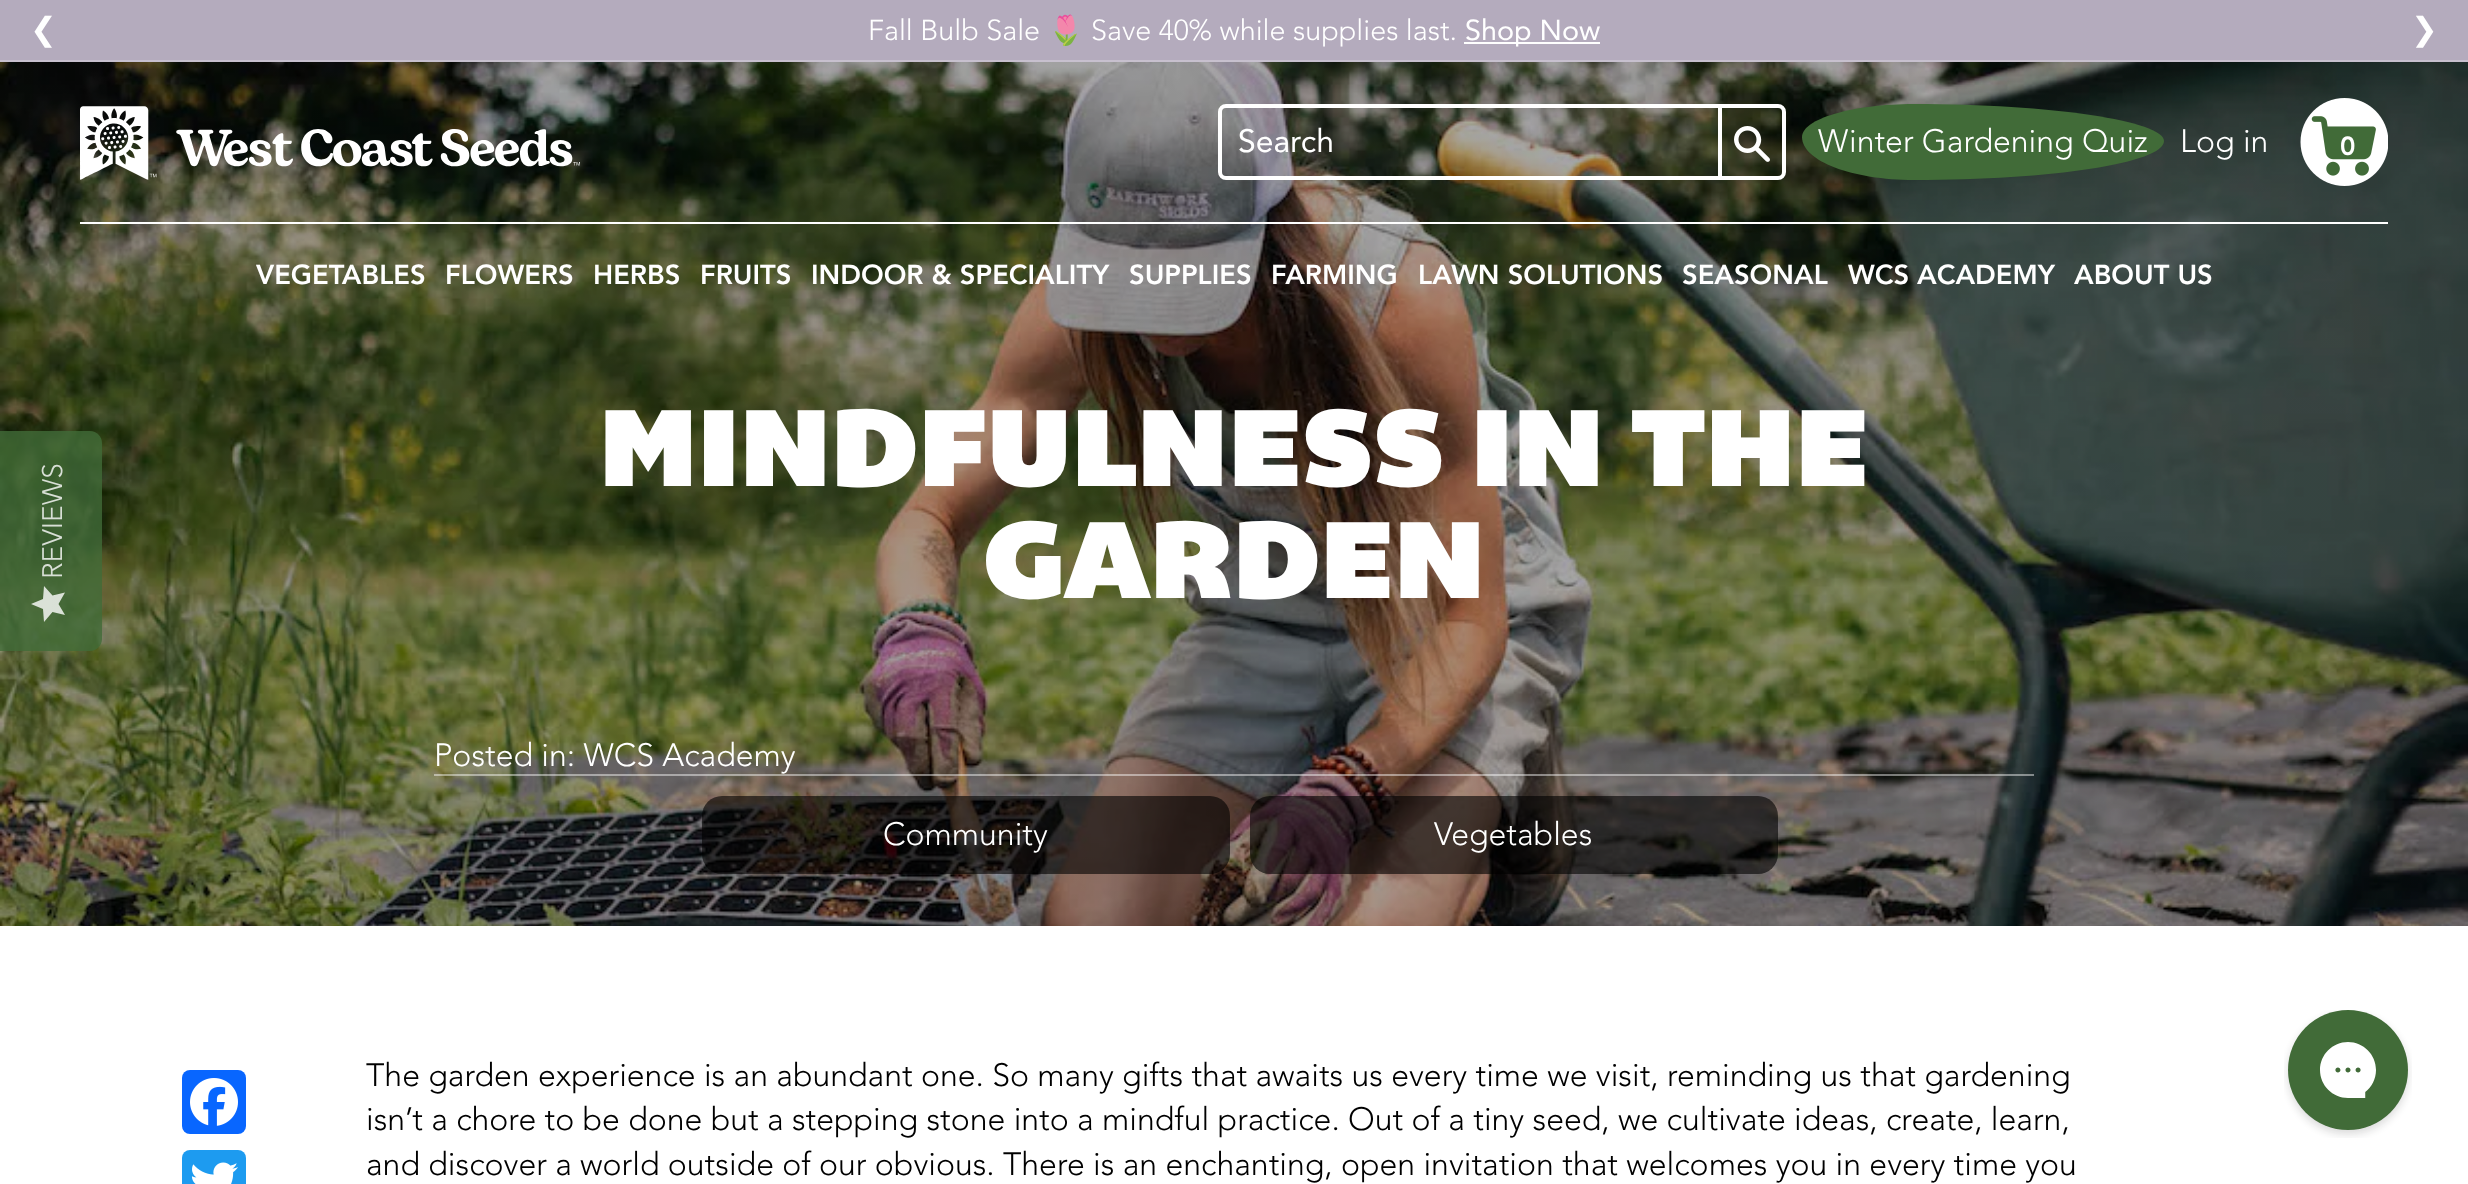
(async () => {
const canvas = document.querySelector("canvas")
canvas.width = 2468
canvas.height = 1184
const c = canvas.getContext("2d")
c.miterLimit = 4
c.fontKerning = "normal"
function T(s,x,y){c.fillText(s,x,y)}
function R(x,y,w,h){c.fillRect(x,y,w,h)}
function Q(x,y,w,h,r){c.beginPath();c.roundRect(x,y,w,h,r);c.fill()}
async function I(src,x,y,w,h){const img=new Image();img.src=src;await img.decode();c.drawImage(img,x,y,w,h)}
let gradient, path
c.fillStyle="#fff"
R(0,0,2468,1184)
c.fillStyle="#b4abbd"
R(0,0,2468,60)
c.fillStyle="#c7c0ce"
R(0,60,2468,2)
c.font="32px DejaVu Sans"
c.fillStyle="#fff"
T("❮",30,40)
c.font="300 28.75px Avenir"
T("Fall Bulb Sale",868,40)
c.font="28.75px Noto Color Emoji"
T("🌷",1048,40)
c.font="300 28.75px Avenir"
T("Save 40% while supplies last.",1091,40)
R(1464,42,136,2)
c.font="28.75px Avenir"
T("Shop Now",1465,40)
c.font="32px DejaVu Sans"
T("❯",2411,40)
await I("4.png",0,62,2468,864)
await I("1.png",80,106,500,74)
c.beginPath()
c.roundRect(1220,106,564,72,6)
c.strokeStyle="#fff"
c.lineWidth=4
c.stroke()
R(1718,108,4,68)
await I("2.png",1734,126,36,36)
c.fillStyle="#416b38"
path = new Path2D("M1914 104c138 0 250 17 250 37c0 22-112 39-250 39c-62 0-112-19-112-43c0-18 50-33 112-33z")
c.fill(path)
c.font="300 32px Avenir"
c.fillStyle="#fff"
T("Winter Gardening Quiz",1818,152)
T("Log in",2180,152)
await I("3.png",2300,98,88,88)
c.letterSpacing="-2px"
c.font="900 26px Avenir"
T("0",2340,155)
R(80,222,2308,2)
c.letterSpacing="0px"
c.font="900 27.25px Avenir"
T("VEGETABLES",256,284)
T("FLOWERS",445,284)
T("HERBS",593,284)
T("FRUITS",700,284)
T("INDOOR & SPECIALITY",811,284)
T("SUPPLIES",1129,284)
T("FARMING",1271,284)
T("LAWN SOLUTIONS",1418,284)
T("SEASONAL",1682,284)
T("WCS ACADEMY",1848,284)
T("ABOUT US",2074,284)
c.fillStyle="#416b38cc"
path = new Path2D("M0 651v-220h90c7 0 12 6 12 12v196c0 6-5 12-12 12z")
c.fill(path)
c.font="300 28px Avenir"
c.fillStyle="#d8dfd6"
c.save()
c.translate(62,579)
c.rotate(-90 * Math.PI / 180)
c.fillText("REVIEWS",0,0)
c.restore()
gradient = c.createLinearGradient(31,622,31,586)
gradient.addColorStop(1,"#ffffffcc")
gradient.addColorStop(1,"#eaeaeacc")
c.fillStyle = gradient
path = new Path2D("M58.5 604l6.5-11.5l-12.5 3l-8.5-9.5l-1 13l-12 5l12 5l1 13l8.5-10l12.5 3z")
c.fill(path)
c.font="112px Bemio"
c.fillStyle="#fff"
T("MINDFULNESS IN THE",599,486)
T("GARDEN",983,598)
c.fillStyle="#ffffff73"
R(434,774,1600,2)
c.font="300 32px Avenir"
c.fillStyle="#fff"
T("Posted in: WCS Academy",434,766)
c.fillStyle="#00000099"
Q(702,796,528,78,20)
c.fillStyle="#fff"
T("Community",883,845)
c.fillStyle="#00000099"
Q(1250,796,528,78,20)
c.fillStyle="#fff"
T("Vegetables",1434,845)
c.fillStyle="#0866ff"
Q(182,1070,64,64,8)
await I("5.png",190,1078,48,48)
c.fillStyle="#1d9bf0"
Q(182,1150,64,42,8)
await I("6.png",191,1162,47,22)
c.fillStyle="#000"
T("The garden experience is an abundant one. So many gifts that awaits us every time we visit, reminding us that gardening",366,1086)
T("isn’t a chore to be done but a stepping stone into a mindful practice. Out of a tiny seed, we cultivate ideas, create, learn,",366,1130)
T("and discover a world outside of our obvious. There is an enchanting, open invitation that welcomes you in every time you",366,1175)
await I("7.png",2284,1010,128,128)
})()
